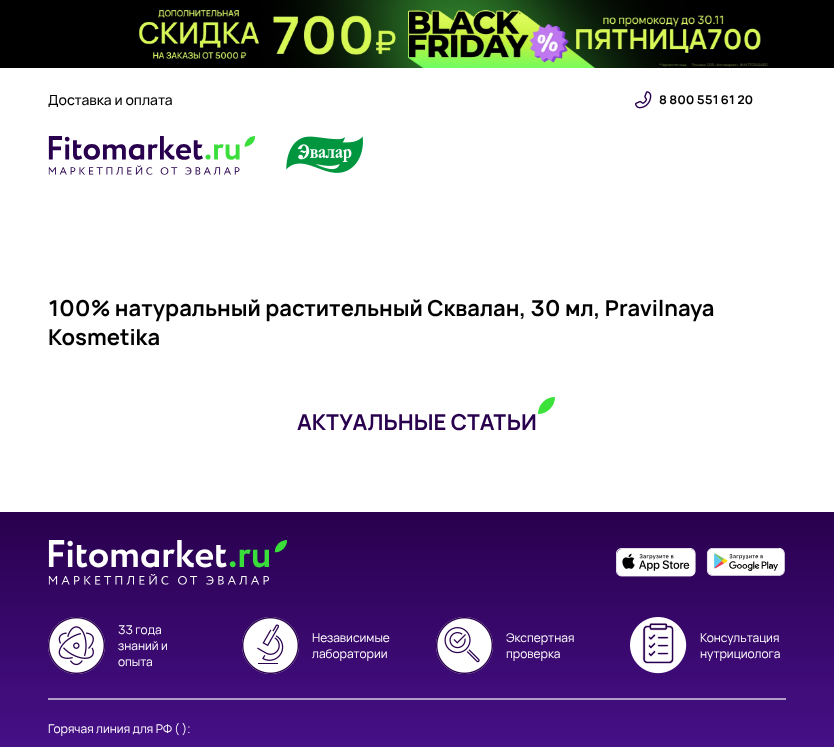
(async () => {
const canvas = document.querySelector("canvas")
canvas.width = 834
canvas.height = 747
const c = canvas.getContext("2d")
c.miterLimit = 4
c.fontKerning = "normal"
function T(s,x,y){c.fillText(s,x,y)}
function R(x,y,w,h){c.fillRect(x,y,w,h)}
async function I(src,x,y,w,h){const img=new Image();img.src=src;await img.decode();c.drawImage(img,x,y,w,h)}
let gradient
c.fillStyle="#fff"
R(0,0,834,747)
c.fillStyle="#000"
R(0,0,834,68)
await I("1.png",139,0,629,68)
c.font="500 14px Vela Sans"
T("Доставка и оплата",48,105)
await I("2.png",635,91,17,18)
c.font="bold 12px Vela Sans"
T("8 800 551 61 20",659,104)
await I("3.png",48,136,208,39)
await I("4.png",286,136,77,37)
c.font="bold 22px Vela Sans"
T("100% натуральный растительный Сквалан, 30 мл, Pravilnaya",48,316)
T("Kosmetika",48,345)
c.fillStyle="#3ae23a"
c.beginPath()
c.roundRect(538,397,17,17,[17,0,17,0])
c.fill()
c.fillStyle="#29004e"
T("АКТУАЛЬНЫЕ СТАТЬИ",297,430)
gradient = c.createLinearGradient(417,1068,417,512)
gradient.addColorStop(0,"#5619a6")
gradient.addColorStop(.55,"#48118b")
gradient.addColorStop(1,"#29004e")
c.fillStyle = gradient
R(0,512,834,235)
await I("5.png",48,540,239,45)
await I("6.png",616,548,80,29)
await I("7.png",706,548,79,28)
await I("8.png",48,617,57,57)
c.font="12px Vela Sans"
c.fillStyle="#fff"
T("33 года",118,634)
T("знаний и",118,650)
T("опыта",118,666)
await I("9.png",242,617,57,57)
T("Независимые",312,642)
T("лаборатории",312,658)
await I("10.png",436,617,57,57)
T("Экспертная",506,642)
T("проверка",506,658)
await I("11.png",630,617,57,57)
T("Консультация",700,642)
T("нутрициолога",700,658)
c.fillStyle="#b39eca"
R(48,698,738,2)
c.fillStyle="#fff"
T("Горячая линия для РФ ( ):",48,733)
})()
